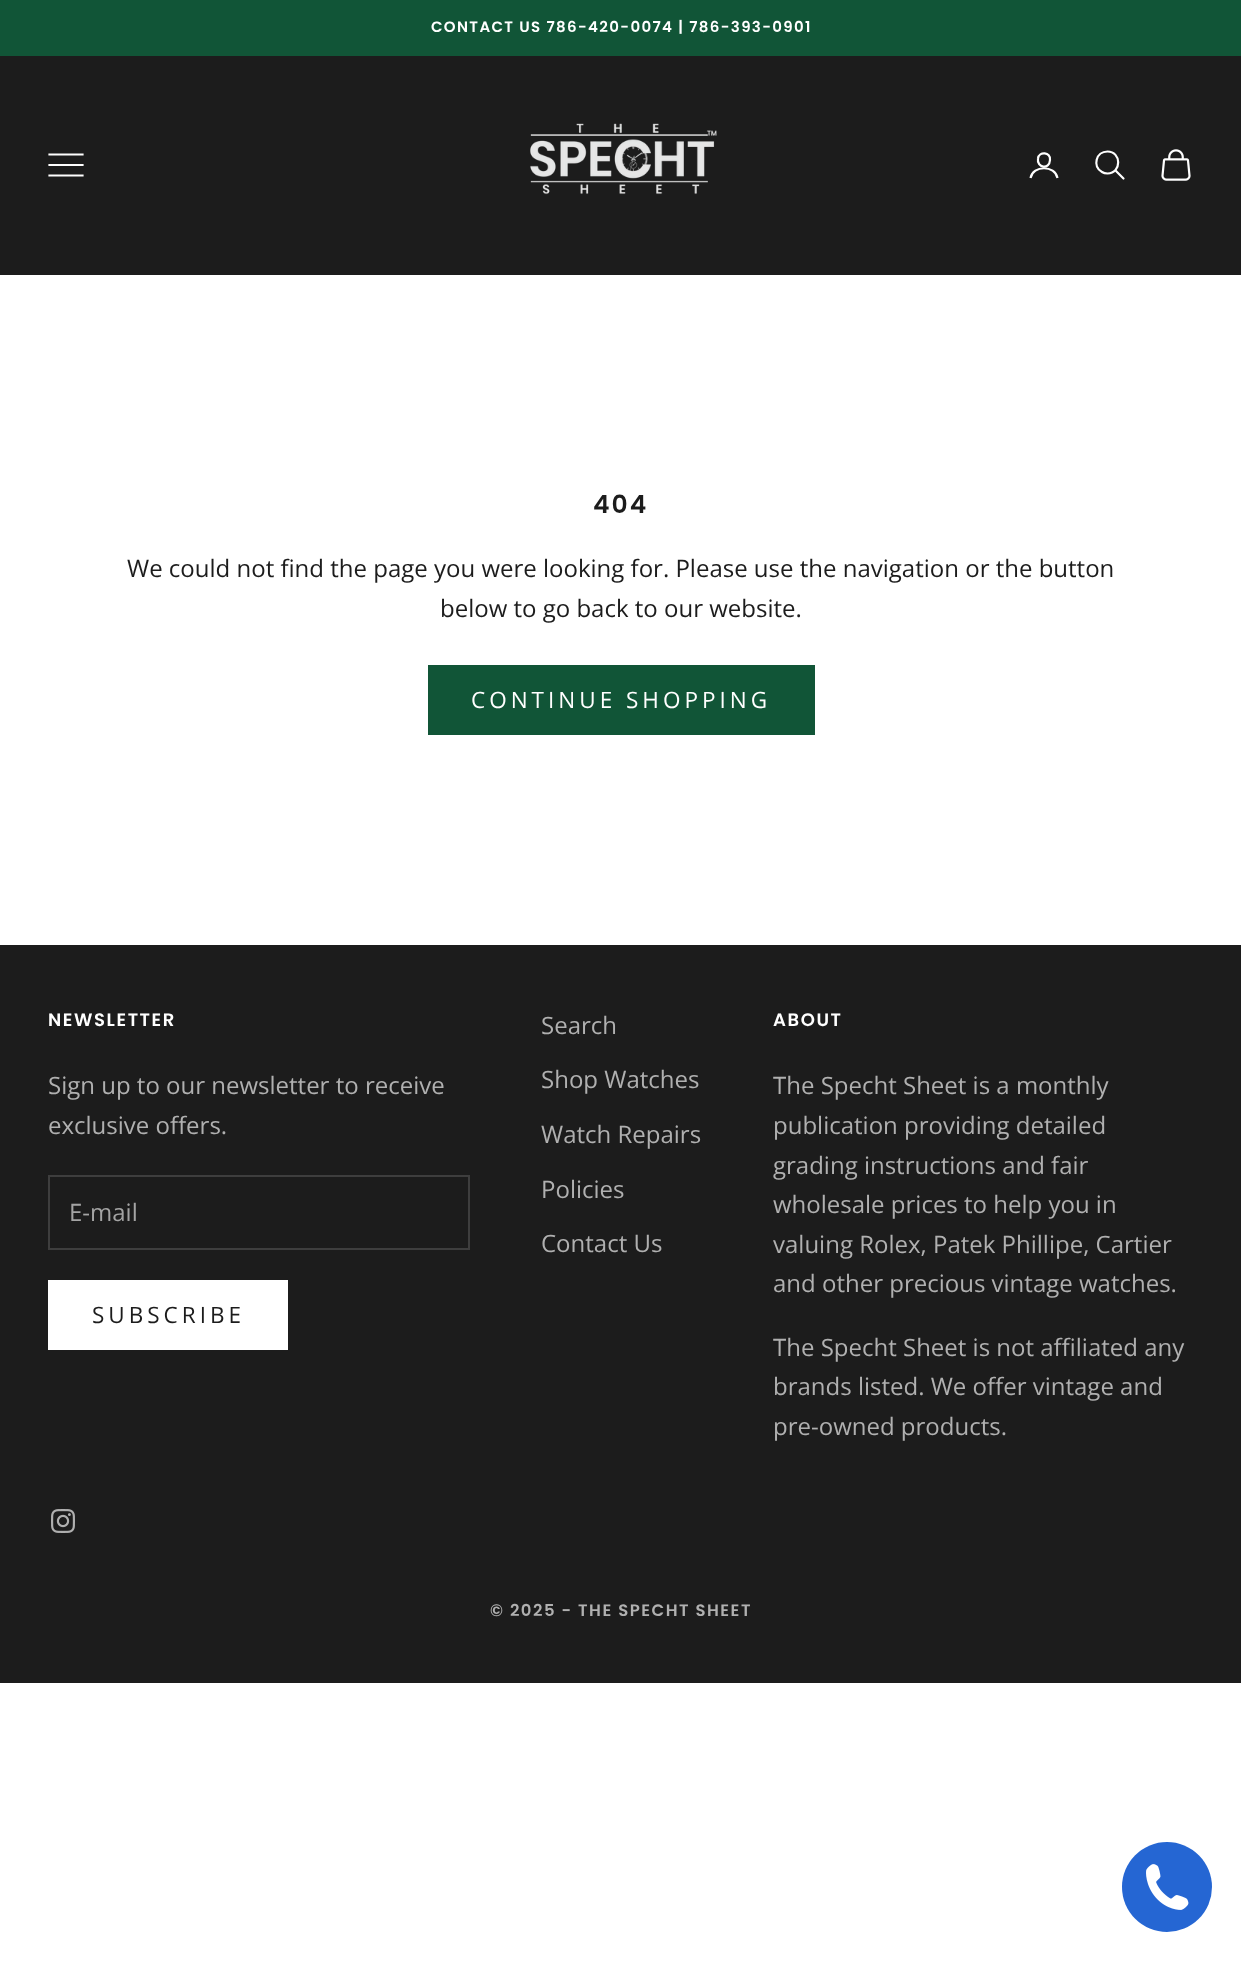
(async () => {
const canvas = document.querySelector("canvas")
canvas.width = 1241
canvas.height = 1961
const c = canvas.getContext("2d")
c.miterLimit = 4
c.fontKerning = "normal"
function T(s,x,y){c.fillText(s,x,y)}
function R(x,y,w,h){c.fillRect(x,y,w,h)}
async function I(src,x,y,w,h){const img=new Image();img.src=src;await img.decode();c.drawImage(img,x,y,w,h)}
let path
c.fillStyle="#fff"
R(0,0,1241,1961)
c.fillStyle="#115537"
R(0,0,1241,56)
c.letterSpacing="1.35px"
c.font="600 15px Poppins"
c.fillStyle="#fff"
T("CONTACT US 786-420-0074 | 786-393-0901",431,32)
c.fillStyle="#1c1c1c"
R(0,56,1241,219)
path = new Path2D("M49.5 175.5h33m-33-10.5h33m-33-10.5h33")
c.strokeStyle="#fff"
c.lineWidth=2.2
c.lineCap="square"
c.stroke(path)
await I("1.png",530,123,187,72)
path = new Path2D("M1050 160c-.5 10-13.5 8-12-1.5c1-7.5 13-6.5 12 1.5z")
c.lineCap="round"
c.lineJoin="round"
c.stroke(path)
path = new Path2D("M1030.5 178c2.5-13 24.5-13 27 0")
c.lineCap="butt"
c.lineJoin="miter"
c.stroke(path)
path = new Path2D("M1107.5 151.5c-11.5 0-15.5 15-5.5 20.5c1.5 1 3.5 1.5 5.5 1.5c14.5-.5 14-22 0-22z")
c.stroke(path)
path = new Path2D("M1116 171l7.5 7.5")
c.lineCap="round"
c.stroke(path)
await I("2.png",1161,149,30,32)
c.letterSpacing="2px"
c.font="600 25px Poppins"
T("404",593,513)
c.letterSpacing="0px"
c.font="24px Open Sans"
T("We could not find the page you were looking for. Please use the navigation or the button",127,577)
T("below to go back to our website.",440,617)
c.fillStyle="#115537"
c.beginPath()
c.rect(429,666,385,68)
c.fill()
c.strokeStyle="#115537"
c.lineWidth=2
c.stroke()
c.letterSpacing="4px"
c.font="22.5px Open Sans"
c.fillStyle="#fff"
T("CONTINUE SHOPPING",471,708)
c.fillStyle="#1c1c1c"
R(0,945,1241,738)
c.letterSpacing="1.6px"
c.font="600 18px Poppins"
c.fillStyle="#fff"
T("NEWSLETTER",48,1026)
c.letterSpacing="0px"
c.font="24px Open Sans"
c.fillStyle="#b0b0b0"
T("Sign up to our newsletter to receive",48,1094)
T("exclusive offers.",48,1134)
c.strokeStyle="#3e3e3e"
c.strokeRect(49,1176,420,73)
c.fillStyle="#a4a4a4"
T("E-mail",69,1221)
c.fillStyle="#fff"
c.beginPath()
c.rect(49,1281,238,68)
c.fill()
c.strokeStyle="#fff"
c.stroke()
c.letterSpacing="4px"
c.font="22.5px Open Sans"
c.fillStyle="#1c1c1c"
T("SUBSCRIBE",92,1323)
c.letterSpacing="0px"
c.font="24px Open Sans"
c.fillStyle="#b0b0b0"
T("Search",541,1034)
T("Shop Watches",541,1088)
T("Watch Repairs",541,1143)
T("Policies",541,1198)
T("Contact Us",541,1252)
c.letterSpacing="1.6px"
c.font="600 18px Poppins"
c.fillStyle="#fff"
T("ABOUT",773,1026)
c.letterSpacing="0px"
c.font="24px Open Sans"
c.fillStyle="#b0b0b0"
T("The Specht Sheet is a monthly",773,1094)
T("publication providing detailed",773,1134)
T("grading instructions and fair",773,1174)
T("wholesale prices to help you in",773,1213)
T("valuing Rolex, Patek Phillipe, Cartier",773,1253)
T("and other precious vintage watches.",773,1292)
T("The Specht Sheet is not affiliated any",773,1356)
T("brands listed. We offer vintage and",773,1395)
T("pre-owned products.",773,1435)
await I("3.png",51,1509,24,24)
c.letterSpacing="1.5px"
c.font="600 16.5px Poppins"
T("© 2025 - THE SPECHT SHEET",490,1616)
c.fillStyle="#2566d3"
c.beginPath()
c.arc(1167,1887,45,0,7)
c.fill()
await I("4.png",1146,1864,43,46)
})()
